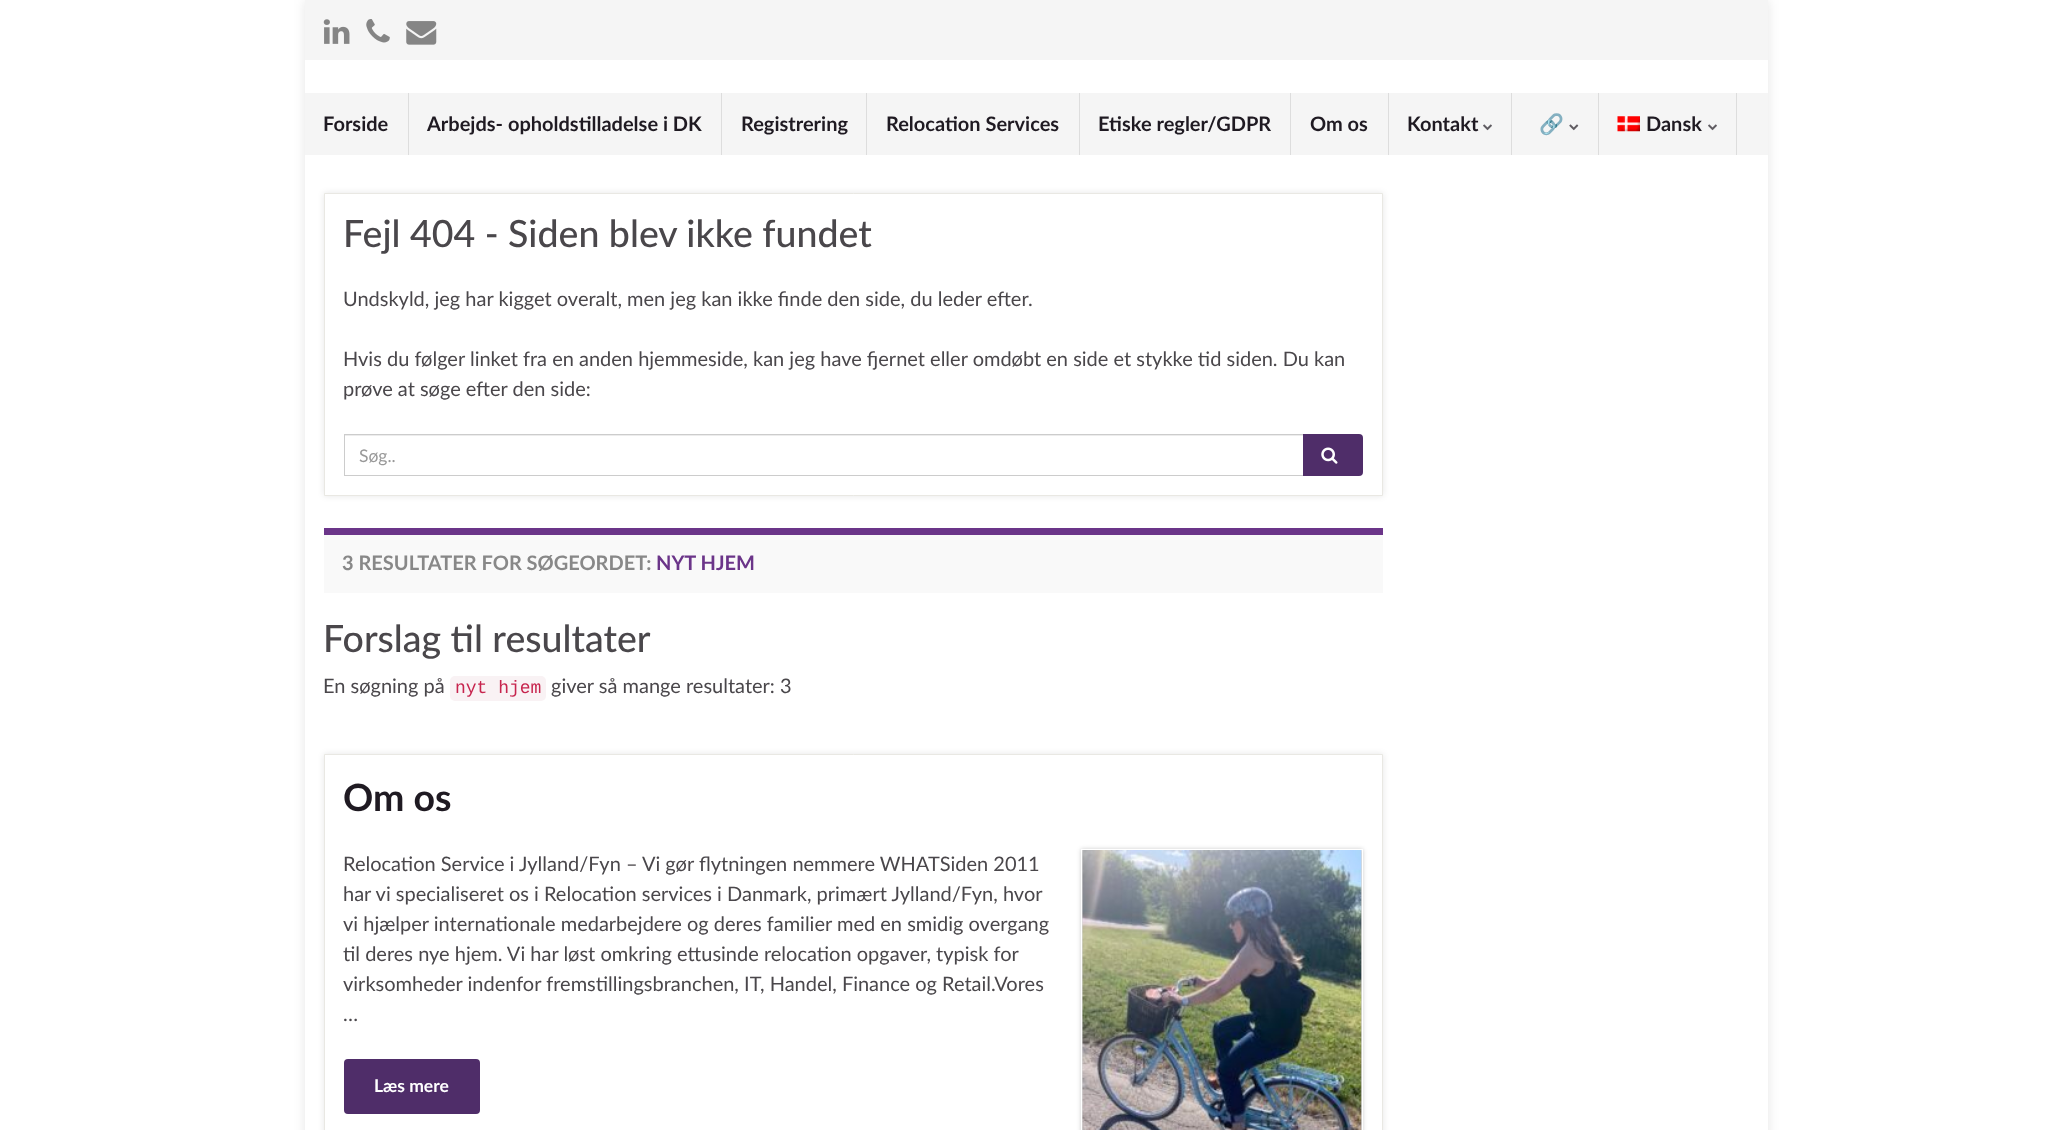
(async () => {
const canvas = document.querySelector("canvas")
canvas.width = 2071
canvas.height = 1130
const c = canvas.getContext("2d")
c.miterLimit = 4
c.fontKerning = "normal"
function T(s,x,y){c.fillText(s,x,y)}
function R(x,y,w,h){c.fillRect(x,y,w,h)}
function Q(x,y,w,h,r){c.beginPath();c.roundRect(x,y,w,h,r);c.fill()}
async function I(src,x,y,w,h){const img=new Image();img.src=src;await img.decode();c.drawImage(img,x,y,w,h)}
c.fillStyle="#fff"
R(0,0,2071,1130)
c.fillStyle="#0000001a"
c.filter="blur(6px)"
c.beginPath()
c.rect(305,0,1463,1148)
c.fill()
c.filter="none"
c.fillStyle="#f5f5f5"
R(305,0,1463,60)
await I("1.png",323,19,27,25)
await I("2.png",366,19,24,24)
await I("3.png",406,21,31,24)
c.fillStyle="#fff"
R(305,60,1463,33)
c.fillStyle="#f5f5f5"
R(305,93,1463,62)
c.fillStyle="#ddd"
R(408,93,1,62)
c.font="bold 20px Lato"
c.fillStyle="#1f1a22"
T("Forside",323,131)
c.fillStyle="#ddd"
R(721,93,1,62)
c.fillStyle="#1f1a22"
T("Arbejds- opholdstilladelse i DK",427,131)
c.fillStyle="#ddd"
R(866,93,1,62)
c.fillStyle="#1f1a22"
T("Registrering",741,131)
c.fillStyle="#ddd"
R(1079,93,1,62)
c.fillStyle="#1f1a22"
T("Relocation Services",886,131)
c.fillStyle="#ddd"
R(1290,93,1,62)
c.fillStyle="#1f1a22"
T("Etiske regler/GDPR",1098,131)
c.fillStyle="#ddd"
R(1388,93,1,62)
c.fillStyle="#1f1a22"
T("Om os",1310,131)
c.fillStyle="#ddd"
R(1511,93,1,62)
c.fillStyle="#1f1a22"
T("Kontakt",1407,131)
await I("4.png",1483,124,9,7)
c.fillStyle="#ddd"
R(1598,93,1,62)
c.font="bold 20px Noto Color Emoji"
c.fillStyle="#1f1a22"
T("🔗",1539,131)
await I("5.png",1569,124,10,7)
c.fillStyle="#ddd"
R(1736,93,1,62)
await I("6.png",1617,116,23,16)
c.font="bold 20px Lato"
c.fillStyle="#1f1a22"
T("Dansk",1646,131)
await I("4.png",1708,124,9,7)
c.fillStyle="#fff"
R(305,155,1463,975)
c.fillStyle="#0000001a"
c.filter="blur(3px)"
c.beginPath()
c.rect(324,193,1059,303)
c.fill()
c.filter="none"
c.fillStyle="#fff"
c.beginPath()
c.rect(324.5,193.5,1058,302)
c.fill()
c.strokeStyle="#e9e8e3"
c.stroke()
c.font="500 37.5px Lato"
c.fillStyle="#4a474b"
T("Fejl 404 - Siden blev ikke fundet",343,247)
c.font="20px Lato"
T("Undskyld, jeg har kigget overalt, men jeg kan ikke finde den side, du leder efter.",343,306)
T("Hvis du følger linket fra en anden hjemmeside, kan jeg have fjernet eller omdøbt en side et stykke tid siden. Du kan",343,366)
T("prøve at søge efter den side:",343,396)
c.fillStyle="#ececec"
R(345,435,958,1)
c.strokeStyle="#ccc"
c.strokeRect(344.5,434.5,959,41)
c.font="17.5px Lato"
c.fillStyle="#999"
T("Søg..",359,462)
c.fillStyle="#4f2d69"
c.beginPath()
c.roundRect(1303,434,60,42,[0,4,4,0])
c.fill()
await I("7.png",1321,447,17,17)
c.fillStyle="#f9f9f9"
R(324,535,1059,58)
c.fillStyle="#6b3589"
R(324,528,1059,7)
c.font="bold 20px Lato"
c.fillStyle="#888"
T("3 RESULTATER FOR SØGEORDET:",342,570)
c.fillStyle="#6b3589"
T("NYT HJEM",656,570)
c.font="500 37.5px Lato"
c.fillStyle="#4a474b"
T("Forslag til resultater",323,652)
c.font="20px Lato"
T("En søgning på",323,693)
c.fillStyle="#f9f2f4"
Q(450,676,96,25,5)
c.font="18px Liberation Mono"
c.fillStyle="#c7254e"
T("nyt hjem",455,693)
c.font="20px Lato"
c.fillStyle="#4a474b"
T("giver så mange resultater: 3",551,693)
c.fillStyle="#0000001a"
c.filter="blur(3px)"
c.beginPath()
c.rect(324,754,1059,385)
c.fill()
c.filter="none"
c.fillStyle="#fff"
c.beginPath()
c.rect(324.5,754.5,1058,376)
c.fill()
c.strokeStyle="#e9e8e3"
c.stroke()
c.font="bold 37.5px Lato"
c.fillStyle="#1f1a22"
T("Om os",343,811)
c.font="20px Lato"
c.fillStyle="#4a474b"
T("Relocation Service i Jylland/Fyn – Vi gør flytningen nemmere WHATSiden 2011",343,871)
T("har vi specialiseret os i Relocation services i Danmark, primært Jylland/Fyn, hvor",343,901)
T("vi hjælper internationale medarbejdere og deres familier med en smidig overgang",343,931)
T("til deres nye hjem. Vi har løst omkring ettusinde relocation opgaver, typisk for",343,961)
T("virksomheder indenfor fremstillingsbranchen, IT, Handel, Finance og Retail.Vores",343,991)
T("…",343,1021)
c.fillStyle="#00000033"
c.filter="blur(2px)"
c.beginPath()
c.rect(1081,849,282,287)
c.fill()
c.filter="none"
c.strokeStyle="#fff"
c.strokeRect(1081.5,849.5,281,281)
await I("8.png",1082,850,280,280)
c.fillStyle="#4f2d69"
Q(344,1059,136,55,4)
c.font="bold 17.5px Lato"
c.fillStyle="#fff"
T("Læs mere",374,1092)
})()
